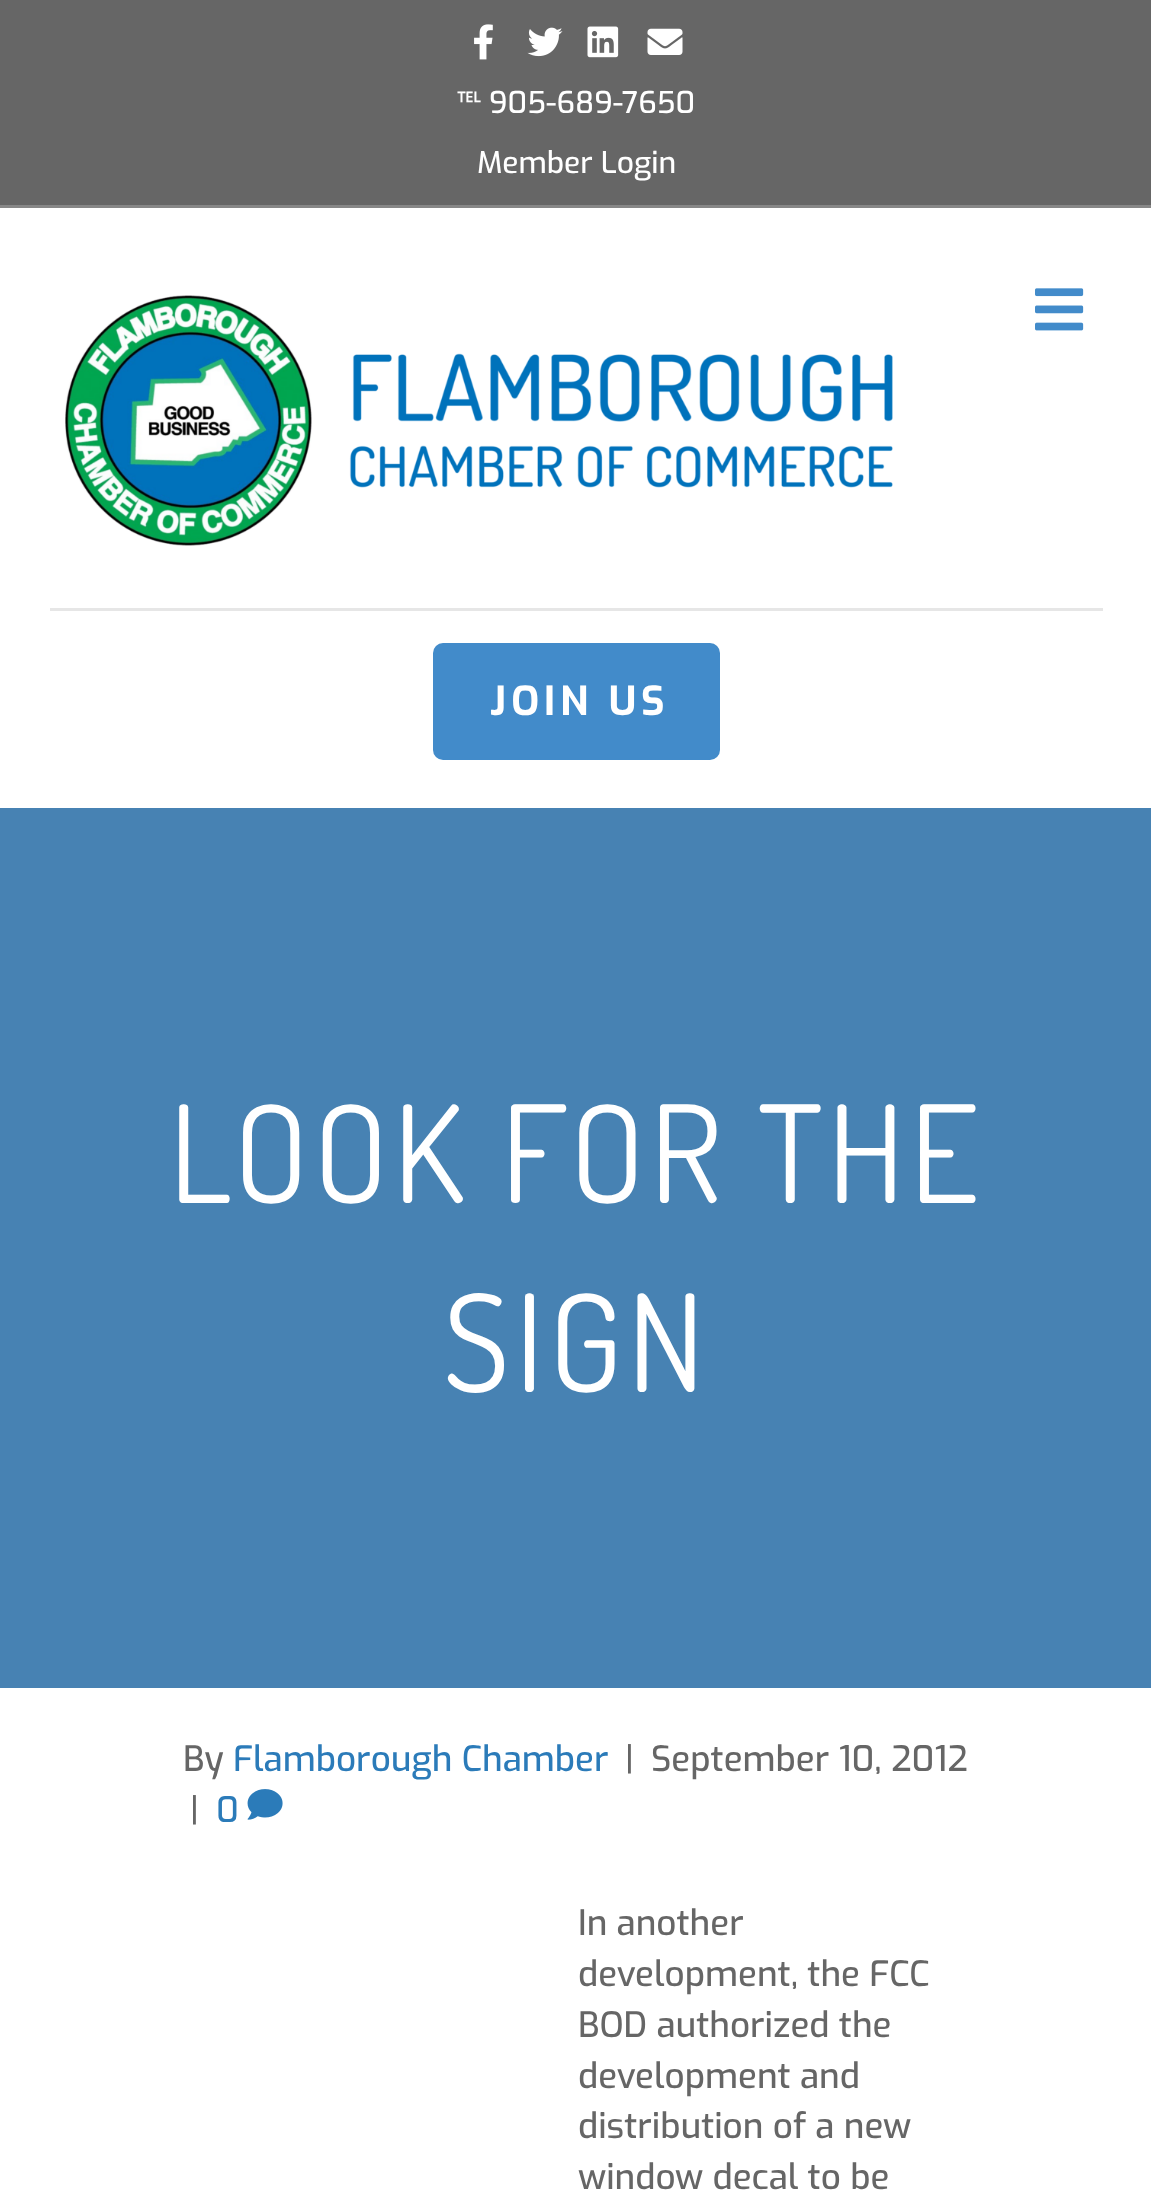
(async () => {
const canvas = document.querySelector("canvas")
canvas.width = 1151
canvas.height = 2202
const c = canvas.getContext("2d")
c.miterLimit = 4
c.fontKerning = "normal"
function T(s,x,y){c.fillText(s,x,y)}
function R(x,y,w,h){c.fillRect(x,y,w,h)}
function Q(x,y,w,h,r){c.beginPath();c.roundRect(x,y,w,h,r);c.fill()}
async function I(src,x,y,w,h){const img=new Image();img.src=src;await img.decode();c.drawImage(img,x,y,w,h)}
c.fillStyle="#666"
R(0,0,1151,2202)
c.fillStyle="#878787"
R(0,205,1151,3)
await I("1.png",474,24,19,36)
await I("2.png",527,27,36,30)
await I("3.png",587,26,32,32)
await I("4.png",647,28,36,27)
c.font="500 30px Noto Sans"
c.fillStyle="#fff"
T("℡",457,113)
c.font="500 30px Exo"
T("905-689-7650",489,113)
T("Member Login",477,173)
R(0,208,1151,600)
await I("5.png",1035,288,49,43)
await I("6.png",65,295,828,251)
c.fillStyle="#e6e6e6"
R(50,608,1053,3)
c.fillStyle="#428bca"
Q(433,643,287,117,10)
c.letterSpacing="5px"
c.font="bold 40px Exo"
c.fillStyle="#fff"
T("JOIN US",490,715)
c.fillStyle="#4782b3"
R(0,808,1151,880)
c.font="135px Dosis"
c.fillStyle="#fff"
T("LOOK FOR THE",169,1203)
T("SIGN",443,1392)
R(0,1688,1151,514)
c.letterSpacing="0px"
c.font="500 35px Exo"
c.fillStyle="#666"
T("By",183,1771)
c.fillStyle="#2b7bb9"
T("Flamborough Chamber",233,1771)
c.fillStyle="#666"
T("|",625,1771)
T("September 10, 2012",651,1771)
T("|",190,1822)
c.fillStyle="#2b7bb9"
T("0",216,1822)
await I("7.png",247,1789,36,31)
c.fillStyle="#666"
T("In another",578,1935)
T("development, the FCC",578,1986)
T("BOD authorized the",578,2037)
T("development and",578,2088)
T("distribution of a new",578,2138)
T("window decal to be",578,2189)
})()
